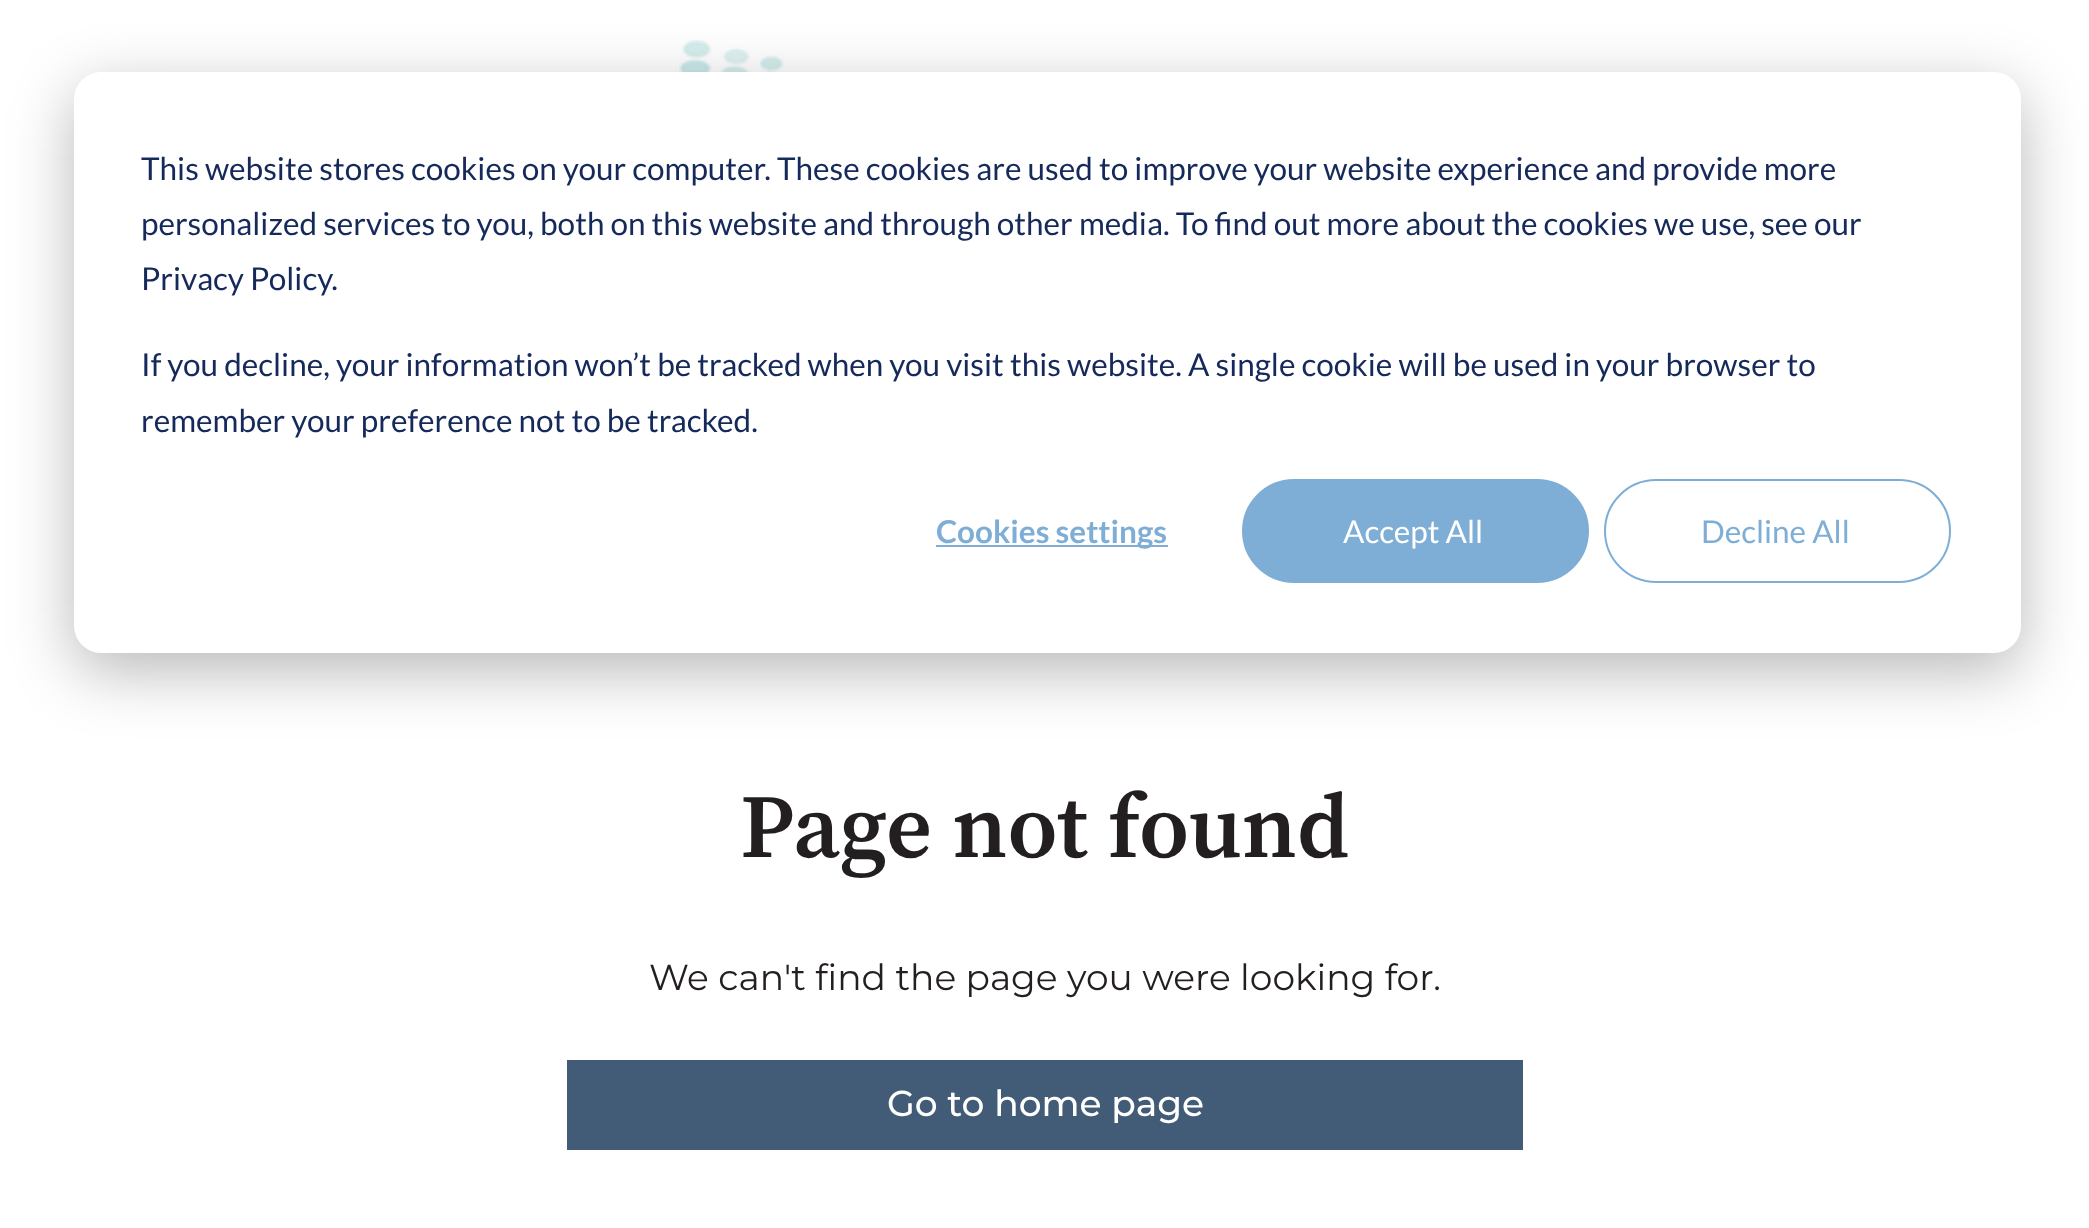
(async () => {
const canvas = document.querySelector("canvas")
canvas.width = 2089
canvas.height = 1228
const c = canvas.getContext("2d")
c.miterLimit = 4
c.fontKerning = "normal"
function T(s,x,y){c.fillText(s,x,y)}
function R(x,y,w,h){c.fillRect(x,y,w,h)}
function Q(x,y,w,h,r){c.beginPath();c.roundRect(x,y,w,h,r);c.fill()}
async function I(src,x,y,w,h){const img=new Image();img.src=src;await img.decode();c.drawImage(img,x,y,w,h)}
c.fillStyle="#fff"
R(0,0,2089,1228)
await I("1.png",679,40,735,32)
c.fillStyle="#00000047"
c.filter="blur(31.5px)"
c.beginPath()
c.roundRect(74,90,1947,581,27)
c.fill()
c.filter="none"
c.fillStyle="#fff"
Q(74,72,1947,581,27)
c.font="31.5px Lato"
c.fillStyle="#15295a"
T("This website stores cookies on your computer. These cookies are used to improve your website experience and provide more",141,180)
T("personalized services to you, both on this website and through other media. To find out more about the cookies we use, see our",141,235)
T("Privacy Policy.",141,290)
T("If you decline, your information won’t be tracked when you visit this website. A single cookie will be used in your browser to",141,376)
T("remember your preference not to be tracked.",141,432)
c.fillStyle="#7eaed6"
R(936,545,232,2)
c.font="bold 31.5px Lato"
T("Cookies settings",936,543)
c.beginPath()
c.roundRect(1243,480,345,102,51)
c.fill()
c.strokeStyle="#7eaed6"
c.lineWidth=2
c.stroke()
c.font="31.5px Lato"
c.fillStyle="#fff"
T("Accept All",1343,543)
c.beginPath()
c.roundRect(1605,480,345,102,51)
c.stroke()
c.fillStyle="#7eaed6"
T("Decline All",1701,543)
c.font="600 90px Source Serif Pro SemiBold"
c.fillStyle="#231f20"
T("Page not found",740,857)
c.font="36px Montserrat"
T("We can't find the page you were looking for.",649,990)
c.fillStyle="#425b76"
R(567,1060,956,90)
c.font="500 36px Montserrat"
c.fillStyle="#fff"
T("Go to home page",887,1116)
})()
